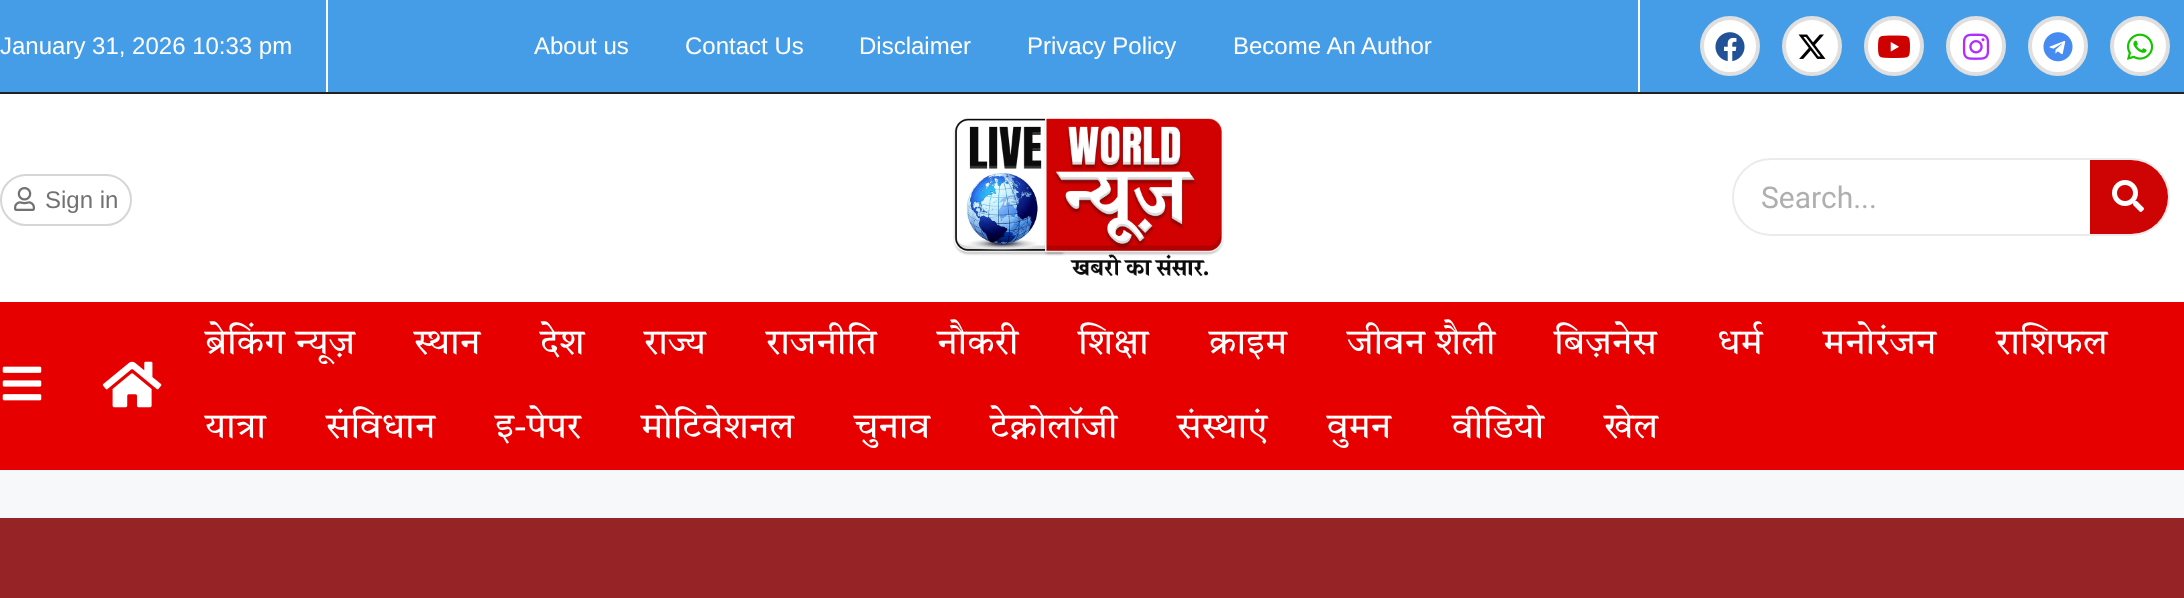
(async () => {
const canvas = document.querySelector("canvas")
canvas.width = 2184
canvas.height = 598
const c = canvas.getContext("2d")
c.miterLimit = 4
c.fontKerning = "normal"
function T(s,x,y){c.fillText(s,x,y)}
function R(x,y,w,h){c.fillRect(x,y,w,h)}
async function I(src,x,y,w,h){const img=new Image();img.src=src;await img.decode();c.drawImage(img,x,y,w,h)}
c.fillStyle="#f7f8f9"
R(0,0,2184,598)
c.fillStyle="#fff"
R(0,94,2184,208)
c.fillStyle="#459de8"
R(0,0,2184,92)
c.fillStyle="#222"
R(0,92,2184,2)
c.fillStyle="#fff"
R(326,0,2,92)
c.font="24px Liberation Sans"
T("January 31, 2026 10:33 pm",0,54)
T("About us",534,54)
T("Contact Us",685,54)
T("Disclaimer",859,54)
T("Privacy Policy",1027,54)
T("Become An Author",1233,54)
R(1638,0,2,92)
c.beginPath()
c.arc(1730,46,28,0,7)
c.fill()
c.strokeStyle="#dfdfdf"
c.lineWidth=4
c.stroke()
await I("1.png",1715,32,30,30)
c.beginPath()
c.arc(1812,46,28,0,7)
c.fill()
c.stroke()
await I("2.png",1798,34,28,25)
c.beginPath()
c.arc(1894,46,28,0,7)
c.fill()
c.stroke()
await I("3.png",1878,35,32,23)
c.beginPath()
c.arc(1976,46,28,0,7)
c.fill()
c.stroke()
await I("4.png",1962,33,28,27)
c.beginPath()
c.arc(2058,46,28,0,7)
c.fill()
c.stroke()
await I("5.png",2043,32,30,30)
c.beginPath()
c.arc(2140,46,28,0,7)
c.fill()
c.stroke()
await I("6.png",2126,33,28,27)
c.beginPath()
c.roundRect(1,175,130,50,25)
c.strokeStyle="#d6d6d6"
c.lineWidth=2
c.stroke()
await I("7.png",14,187,21,24)
c.fillStyle="#727272"
T("Sign in",45,208)
await I("8.png",953,118,271,158)
c.beginPath()
c.roundRect(1733,159,436,76,38)
c.strokeStyle="#ebebeb"
c.stroke()
c.font="30px Roboto"
c.fillStyle="#afafaf"
T("Search...",1761,208)
c.fillStyle="#ce0404"
c.beginPath()
c.roundRect(2090,160,78,74,[0,37,37,0])
c.fill()
await I("9.png",2112,180,32,32)
c.fillStyle="#e60000"
R(0,302,2184,168)
await I("10.png",2,366,40,35)
await I("11.png",102,361,60,47)
c.wordSpacing="1px"
c.font="36px Tiro Devanagari Hindi"
c.fillStyle="#fff"
T("ब्रेकिंग न्यूज़",205,354)
c.wordSpacing="0px"
T("स्थान",414,354)
T("देश",540,354)
T("राज्य",644,354)
T("राजनीति",766,354)
T("नौकरी",937,354)
T("शिक्षा",1078,354)
T("क्राइम",1209,354)
c.wordSpacing="1px"
T("जीवन शैली",1347,354)
c.wordSpacing="0px"
T("बिज़नेस",1554,354)
T("धर्म",1717,354)
T("मनोरंजन",1823,354)
T("राशिफल",1996,354)
T("यात्रा",205,438)
T("संविधान",326,438)
T("इ-पेपर",495,438)
T("मोटिवेशनल",641,438)
T("चुनाव",854,438)
T("टेक्नोलॉजी",990,438)
T("संस्थाएं",1177,438)
T("वुमन",1327,438)
T("वीडियो",1452,438)
T("खेल",1604,438)
c.fillStyle="#962326"
R(0,518,2184,80)
})()
